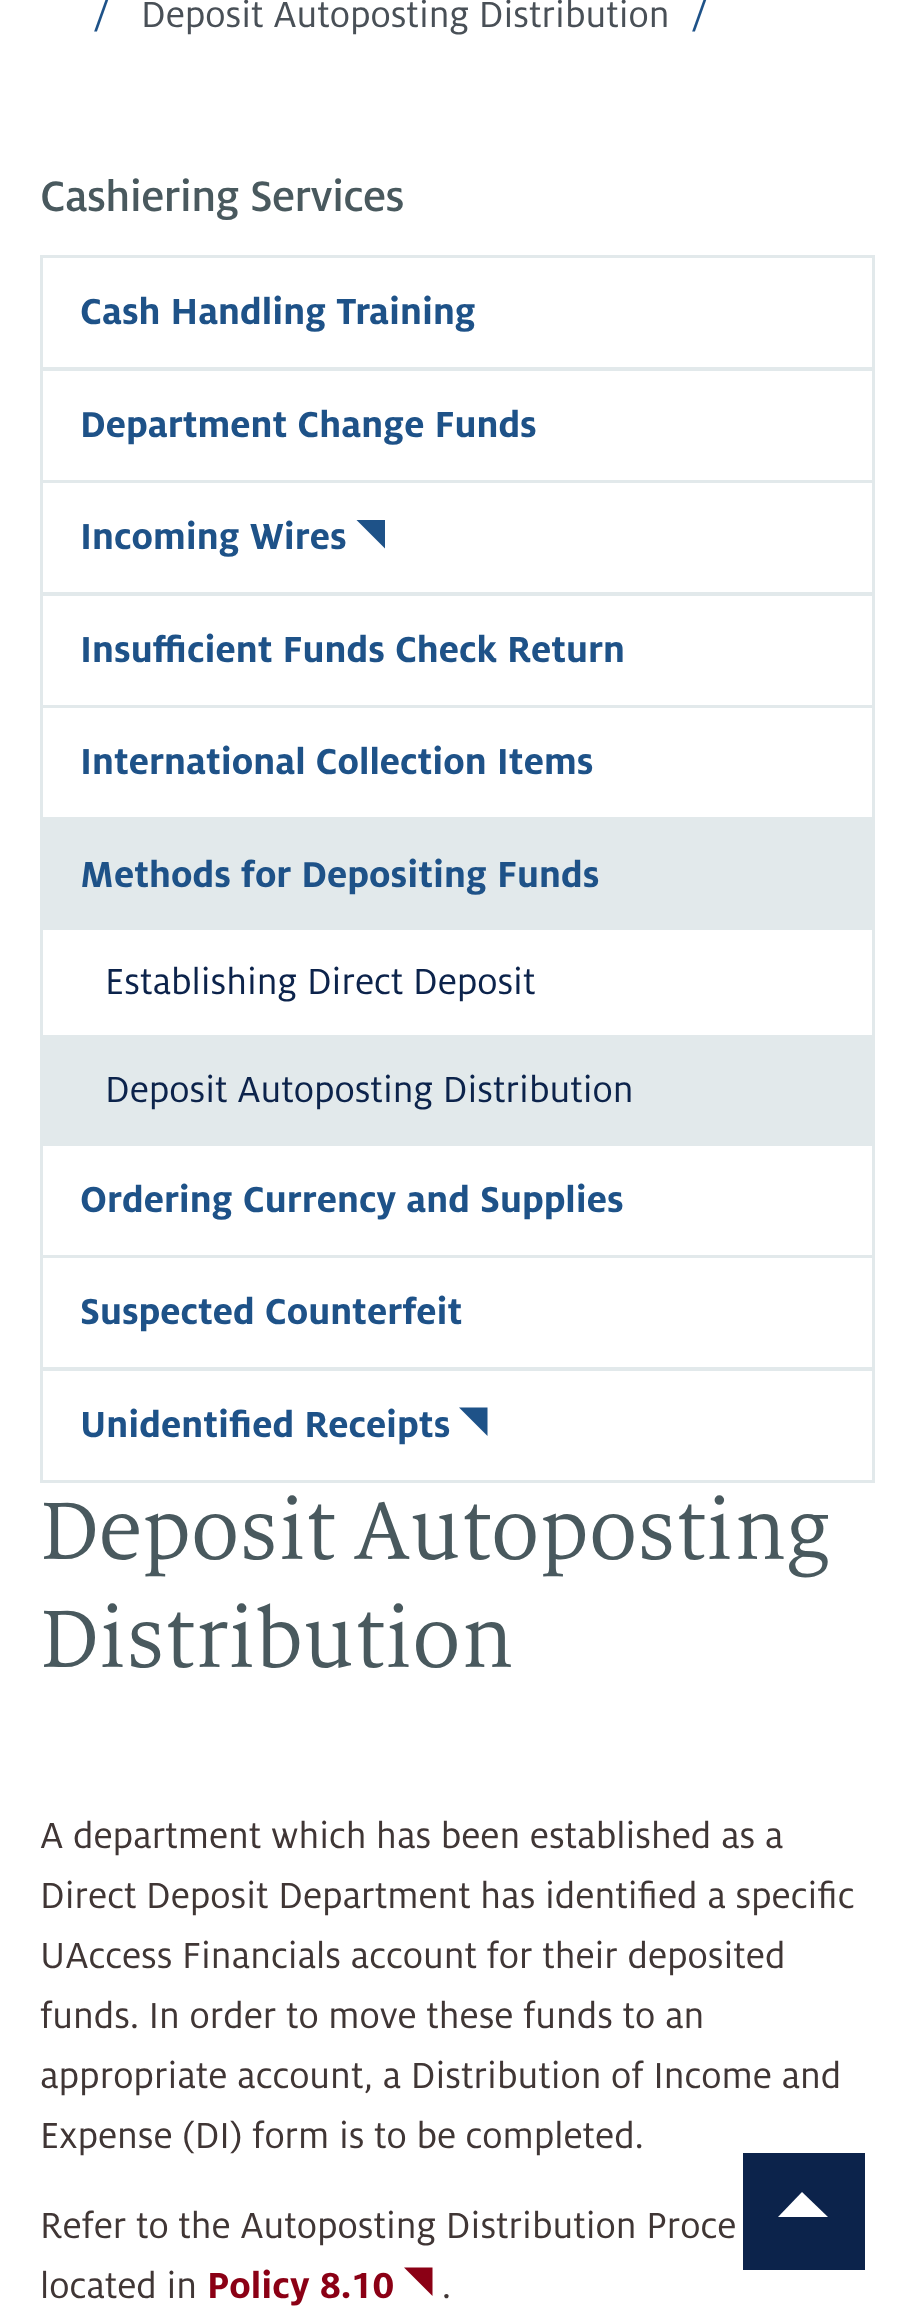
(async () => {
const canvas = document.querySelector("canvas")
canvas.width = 913
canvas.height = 2319
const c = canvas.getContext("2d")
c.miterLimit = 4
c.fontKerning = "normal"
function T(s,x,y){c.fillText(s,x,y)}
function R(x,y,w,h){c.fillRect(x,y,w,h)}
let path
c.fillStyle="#fff"
R(0,0,913,2319)
c.font="40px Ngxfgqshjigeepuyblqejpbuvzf"
c.fillStyle="#1e5288"
T("/",93,27)
c.fillStyle="#495057"
T("Deposit Autoposting Distribution",141,27)
c.fillStyle="#1e5288"
T("/",691,27)
c.letterSpacing="-0.6px"
c.font="500 47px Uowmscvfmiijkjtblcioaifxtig"
c.fillStyle="#49595e"
T("Cashiering Services",40,211)
c.strokeStyle="#e2e9eb"
c.lineWidth=3
c.strokeRect(41.5,256.5,832,112)
c.letterSpacing="0px"
c.font="bold 40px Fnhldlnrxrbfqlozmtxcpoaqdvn"
c.fillStyle="#1e5288"
T("Cash Handling Training",80,324)
c.strokeRect(41.5,369.5,832,112)
T("Department Change Funds",80,437)
c.strokeRect(41.5,481.5,832,112)
T("Incoming Wires",80,549)
path = new Path2D("M385 548.5l-28.5-28.5h28.5z")
c.fill(path)
c.strokeRect(41.5,594.5,832,112)
T("Insufficient Funds Check Return",80,662)
c.strokeRect(41.5,706.5,832,112)
T("International Collection Items",80,774)
c.strokeRect(41.5,819.5,832,324)
c.fillStyle="#e2e9eb"
R(43,821,829,109)
c.fillStyle="#1e5288"
T("Methods for Depositing Funds",80,887)
c.font="40px Ngxfgqshjigeepuyblqejpbuvzf"
c.fillStyle="#0c234b"
T("Establishing Direct Deposit",105,994)
c.fillStyle="#e2e9eb"
R(43,1035,829,107)
c.fillStyle="#0c234b"
T("Deposit Autoposting Distribution",105,1102)
c.strokeRect(41.5,1144.5,832,112)
c.font="bold 40px Fnhldlnrxrbfqlozmtxcpoaqdvn"
c.fillStyle="#1e5288"
T("Ordering Currency and Supplies",80,1212)
c.strokeRect(41.5,1256.5,832,112)
T("Suspected Counterfeit",80,1324)
c.strokeRect(41.5,1369.5,832,112)
T("Unidentified Receipts",80,1437)
path = new Path2D("M487.5 1436l-28.5-28.5h28.5z")
c.fill(path)
c.font="90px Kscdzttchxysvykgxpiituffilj"
c.fillStyle="#49595e"
T("Deposit Autoposting",40,1559)
T("Distribution",40,1667)
c.font="40px Ngxfgqshjigeepuyblqejpbuvzf"
c.fillStyle="#403635"
T("A department which has been established as a",40,1848)
T("Direct Deposit Department has identified a specific",40,1908)
T("UAccess Financials account for their deposited",40,1968)
T("funds. In order to move these funds to an",40,2028)
T("appropriate account, a Distribution of Income and",40,2088)
T("Expense (DI) form is to be completed.",40,2148)
T("Refer to the Autoposting Distribution Proce",40,2238)
T("located in",40,2298)
c.font="bold 40px Fnhldlnrxrbfqlozmtxcpoaqdvn"
c.fillStyle="#8b0015"
T("Policy 8.10",207,2298)
path = new Path2D("M432.5 2296l-28.5-28.5h28.5z")
c.fill(path)
c.font="40px Ngxfgqshjigeepuyblqejpbuvzf"
c.fillStyle="#403635"
T(".",442,2298)
c.fillStyle="#0c234b"
R(743,2153,122,117)
c.fillStyle="#fff"
path = new Path2D("M828 2217h-50l24-25z")
c.fill(path)
})()
